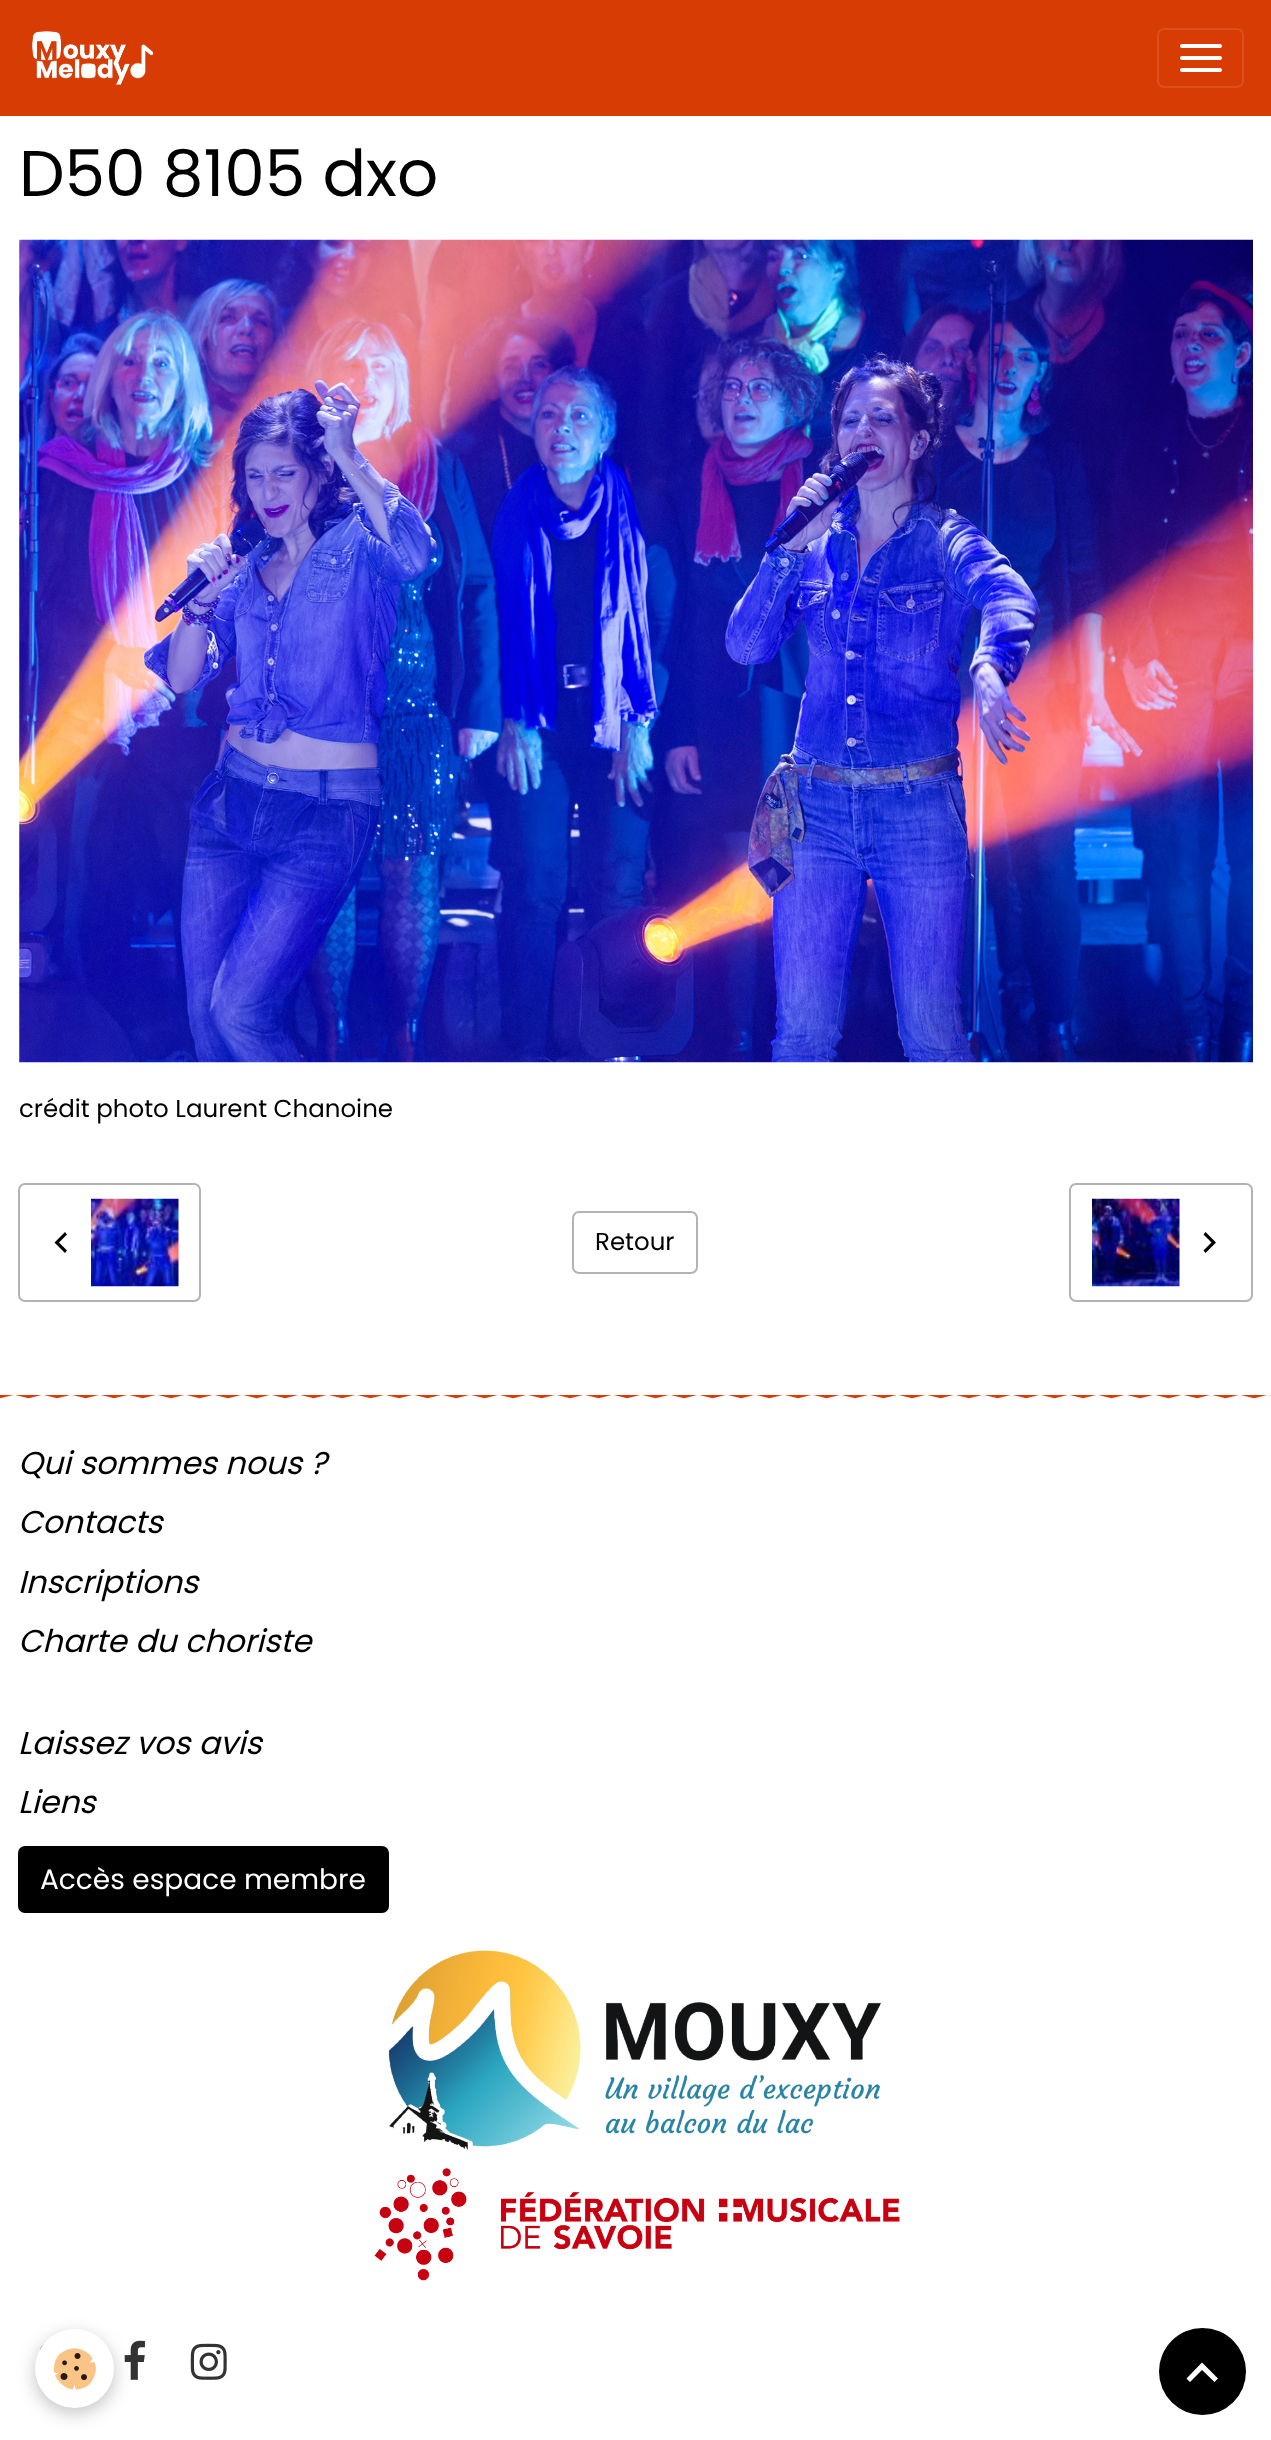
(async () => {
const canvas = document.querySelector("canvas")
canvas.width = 1271
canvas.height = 2440
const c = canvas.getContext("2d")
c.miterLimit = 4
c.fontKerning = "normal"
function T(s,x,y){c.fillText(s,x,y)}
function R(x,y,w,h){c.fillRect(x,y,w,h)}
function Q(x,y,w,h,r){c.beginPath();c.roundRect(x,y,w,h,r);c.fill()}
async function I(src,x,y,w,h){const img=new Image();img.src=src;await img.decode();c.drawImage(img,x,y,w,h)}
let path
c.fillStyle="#fff"
R(0,0,1271,2440)
c.fillStyle="#d83c05"
R(0,0,1271,116)
await I("1.png",32,31,122,54)
c.beginPath()
c.roundRect(1158,29,85,58,6)
c.strokeStyle="#dc501e"
c.lineWidth=2
c.stroke()
c.fillStyle="#fff"
Q(1180,44,42,4,2)
Q(1180,56,42,4,2)
Q(1180,68,42,4,2)
c.font="64.5px Poppins"
c.fillStyle="#000"
T("D50 8105 dxo",19,196)
await I("2.png",19,239,1234,824)
c.font="24.5px Poppins"
T("crédit photo Laurent Chanoine",19,1117)
c.beginPath()
c.roundRect(19,1184,181,117,6)
c.strokeStyle="#b3b3b3"
c.stroke()
path = new Path2D("M67 1234.5l-8 8l8 8l-2 2.5l-10.5-10.5l10.5-10.5z")
c.fill(path)
await I("3.png",91,1198,88,89)
c.beginPath()
c.roundRect(573,1212,124,61,6)
c.stroke()
T("Retour",595,1250)
c.beginPath()
c.roundRect(1070,1184,182,117,6)
c.stroke()
await I("4.png",1092,1198,88,89)
path = new Path2D("M1205.5 1232l10.5 10.5l-10.5 10.5l-2-2.5l8-8l-8-8z")
c.fill(path)
await I("5.png",0,1395,1271,4)
c.font="italic 31.5px Poppins"
T("Qui sommes nous ?",18,1474)
T("Contacts",18,1533)
T("Inscriptions",18,1593)
T("Charte du choriste",18,1652)
T("Laissez vos avis",18,1754)
T("Liens",18,1813)
c.beginPath()
c.roundRect(19,1847,369,65,6)
c.fill()
c.strokeStyle="#000"
c.stroke()
c.font="28px Poppins"
c.fillStyle="#fff"
T("Accès espace membre",40,1889)
await I("6.png",388,1950,494,200)
await I("7.png",374,2168,526,113)
await I("8.png",40,2344,4,6)
await I("9.png",124,2340,21,40)
await I("10.png",190,2343,37,37)
c.fillStyle="#0000003d"
c.filter="blur(9px)"
c.beginPath()
c.roundRect(35,2335,79,78,39)
c.fill()
c.filter="none"
c.fillStyle="#fff"
c.beginPath()
c.arc(74.5,2368.5,39.5,0,7)
c.fill()
await I("11.png",53,2348,43,42)
c.fillStyle="#000"
c.beginPath()
c.arc(1202.5,2371.5,43.5,0,7)
c.fill()
c.fillStyle="#fff"
path = new Path2D("M1202 2362.5l16 16l-3.5 3.5l-12.5-12l-12 12l-3.5-3.5z")
c.fill(path)
})()
